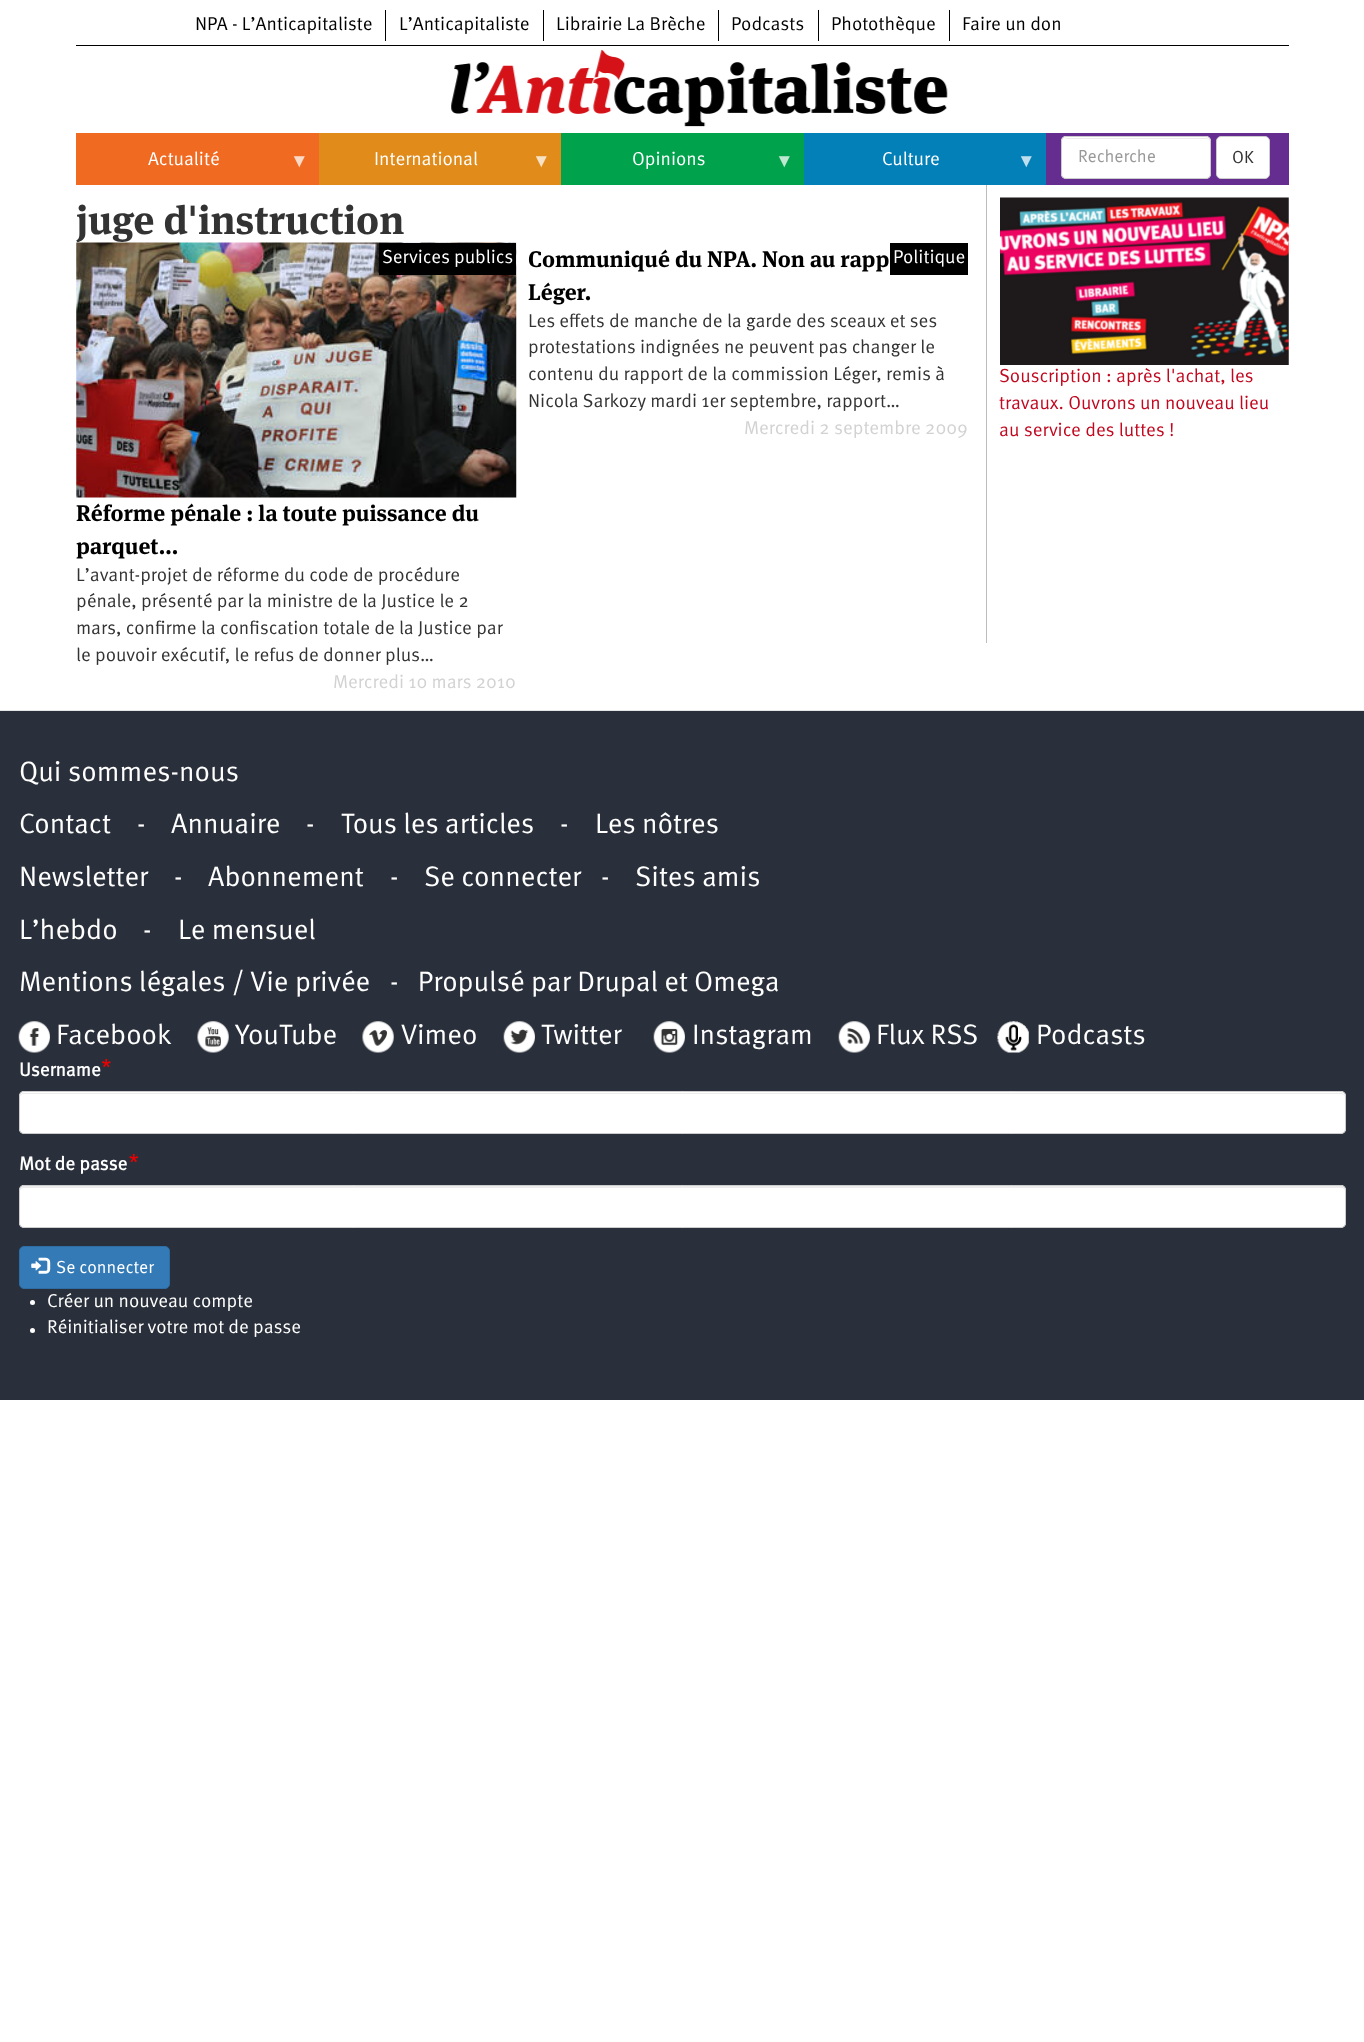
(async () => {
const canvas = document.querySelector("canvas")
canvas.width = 1364
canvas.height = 2042
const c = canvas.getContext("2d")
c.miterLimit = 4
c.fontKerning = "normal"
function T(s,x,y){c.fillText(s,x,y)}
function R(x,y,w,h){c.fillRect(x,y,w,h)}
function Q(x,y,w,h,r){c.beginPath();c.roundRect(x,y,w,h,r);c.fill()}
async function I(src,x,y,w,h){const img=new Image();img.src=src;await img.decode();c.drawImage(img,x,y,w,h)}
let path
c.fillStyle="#fff"
R(0,0,1364,2042)
c.fillStyle="#000"
R(76,45,1213,1)
c.font="18.75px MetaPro"
T("NPA - L’Anticapitaliste",195,30)
R(385,10,1,31)
T("L’Anticapitaliste",399,30)
R(543,10,1,31)
T("Librairie La Brèche",556,30)
R(718,10,1,31)
T("Podcasts",731,30)
R(818,10,1,31)
T("Photothèque",831,30)
R(949,10,1,31)
T("Faire un don",962,30)
await I("1.png",451,50,497,77)
c.fillStyle="#f16a22"
R(76,133,243,52)
c.fillStyle="#fff"
T("Actualité",148,165)
c.font="18.75px Liberation Serif"
c.fillStyle="#fcdac8"
T("▼",290,167)
c.fillStyle="#e08b1a"
R(319,133,242,52)
c.font="18.75px MetaPro"
c.fillStyle="#fff"
T("International",374,165)
c.font="18.75px Liberation Serif"
c.fillStyle="#f7e2c6"
T("▼",532,167)
c.fillStyle="#00a24c"
R(561,133,243,52)
c.font="18.75px MetaPro"
c.fillStyle="#fff"
T("Opinions",632,165)
c.font="18.75px Liberation Serif"
c.fillStyle="#bfe8d2"
T("▼",775,167)
c.fillStyle="#0480b9"
R(804,133,242,52)
c.font="18.75px MetaPro"
c.fillStyle="#fff"
T("Culture",882,165)
c.font="18.75px Liberation Serif"
c.fillStyle="#c0dfee"
T("▼",1017,167)
c.fillStyle="#652d90"
R(1046,133,243,52)
c.fillStyle="#fff"
Q(1061,136,150,43,5)
c.fillStyle="#ececec"
path = new Path2D("M1066 139h140c2 0 4 1 4 3c0-2-2-4-4-4h-139l-3 1z")
c.fill(path)
c.beginPath()
c.roundRect(1061.5,136.5,149,42,4.5)
c.strokeStyle="#ccc"
c.stroke()
c.font="17.5px MetaPro"
c.fillStyle="#999"
T("Recherche",1078,162)
c.fillStyle="#fff"
c.beginPath()
c.roundRect(1216.5,136.5,53,42,4.5)
c.fill()
c.stroke()
c.fillStyle="#333"
T("OK",1232,163)
c.font="bold 40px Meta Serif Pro"
T("juge d'instruction",76,234)
await I("2.png",76,242,441,256)
c.fillStyle="#000"
R(379,243,137,32)
c.font="18.75px MetaPro"
c.fillStyle="#fff"
T("Services publics",382,263)
c.font="bold 22.5px Meta Serif Pro"
c.fillStyle="#000"
T("Réforme pénale : la toute puissance du",76,521)
T("parquet...",76,554)
c.font="18.75px MetaPro"
c.fillStyle="#333"
T("L’avant-projet de réforme du code de procédure",76,581)
T("pénale, présenté par la ministre de la Justice le 2",76,607)
T("mars, confirme la confiscation totale de la Justice par",76,634)
T("le pouvoir exécutif, le refus de donner plus…",76,661)
c.fillStyle="#d2d2d2"
T("Mercredi 10 mars 2010",333,688)
c.font="bold 22.5px Meta Serif Pro"
c.fillStyle="#000"
T("Communiqué du NPA. Non au rapp",528,267)
R(890,243,78,32)
c.font="18.75px MetaPro"
c.fillStyle="#fff"
T("Politique",893,263)
c.font="bold 22.5px Meta Serif Pro"
c.fillStyle="#000"
T("Léger.",528,300)
c.font="18.75px MetaPro"
c.fillStyle="#333"
T("Les effets de manche de la garde des sceaux et ses",528,327)
T("protestations indignées ne peuvent pas changer le",528,353)
T("contenu du rapport de la commission Léger, remis à",528,380)
T("Nicola Sarkozy mardi 1er septembre, rapport…",528,407)
c.fillStyle="#d2d2d2"
T("Mercredi 2 septembre 2009",744,434)
c.fillStyle="#bcbcbc"
R(986,185,1,458)
await I("3.png",1000,197,289,168)
c.fillStyle="#c0081f"
T("Souscription : après l'achat, les",999,382)
T("travaux. Ouvrons un nouveau lieu",999,409)
T("au service des luttes !",999,436)
c.fillStyle="#2a303b"
R(0,711,1364,689)
c.fillStyle="#e5e5e5"
R(0,710,1364,1)
c.font="28.1px MetaPro"
c.fillStyle="#fff"
T("Qui sommes-nous",19,781)
T("Contact",19,833)
T("-",137,833)
T("Annuaire",171,833)
T("-",306,833)
T("Tous les articles",341,833)
T("-",560,833)
T("Les nôtres",595,833)
T("Newsletter",19,886)
T("-",174,886)
T("Abonnement",208,886)
T("-",390,886)
T("Se connecter",424,886)
T("-",601,886)
T("Sites amis",635,886)
T("L’hebdo",19,939)
T("-",143,939)
T("Le mensuel",178,939)
T("Mentions légales / Vie privée",19,991)
T("-   Propulsé par Drupal et Omega",390,991)
await I("4.png",18,1021,32,32)
T("Facebook",56,1044)
await I("5.png",197,1021,32,32)
T("YouTube",235,1044)
await I("6.png",362,1021,32,32)
T("Vimeo",401,1044)
await I("7.png",503,1021,32,32)
T("Twitter",541,1044)
await I("8.png",653,1021,32,32)
T("Instagram",692,1044)
await I("9.png",838,1021,32,32)
T("Flux RSS",876,1044)
await I("10.png",997,1021,32,32)
T("Podcasts",1036,1044)
c.font="bold 18.75px MetaPro"
T("Username",19,1076)
await I("11.png",101,1059,10,9)
Q(19,1091,1327,43,5)
c.fillStyle="#ececec"
path = new Path2D("M24 1094h1317c2 0 4 1 4 4v-1c0-2-2-4-4-4h-1317c-2 0-4 2-4 4v1c0-3 2-4 4-4z")
c.fill(path)
c.beginPath()
c.roundRect(19.5,1091.5,1326,42,4.5)
c.stroke()
c.fillStyle="#fff"
T("Mot de passe",19,1170)
await I("12.png",129,1154,10,9)
Q(19,1185,1327,43,5)
c.fillStyle="#ececec"
path = new Path2D("M24 1188h1317c2 0 4 1 4 3v-1c0-2-2-4-4-4h-1317c-2 0-4 2-4 4v1c0-2 2-3 4-3z")
c.fill(path)
c.beginPath()
c.roundRect(19.5,1185.5,1326,42,4.5)
c.stroke()
c.fillStyle="#337ab7"
c.beginPath()
c.roundRect(19.5,1246.5,150,42,4.5)
c.fill()
c.strokeStyle="#2e6da4"
c.stroke()
await I("13.png",31,1257,20,17)
c.font="17.5px MetaPro"
c.fillStyle="#fff"
T("Se connecter",56,1273)
c.beginPath()
c.arc(32.5,1302.5,2.5,0,7)
c.fill()
c.font="18.75px MetaPro"
T("Créer un nouveau compte",47,1307)
c.beginPath()
c.arc(32.5,1330.5,2.5,0,7)
c.fill()
T("Réinitialiser votre mot de passe",47,1333)
})()
